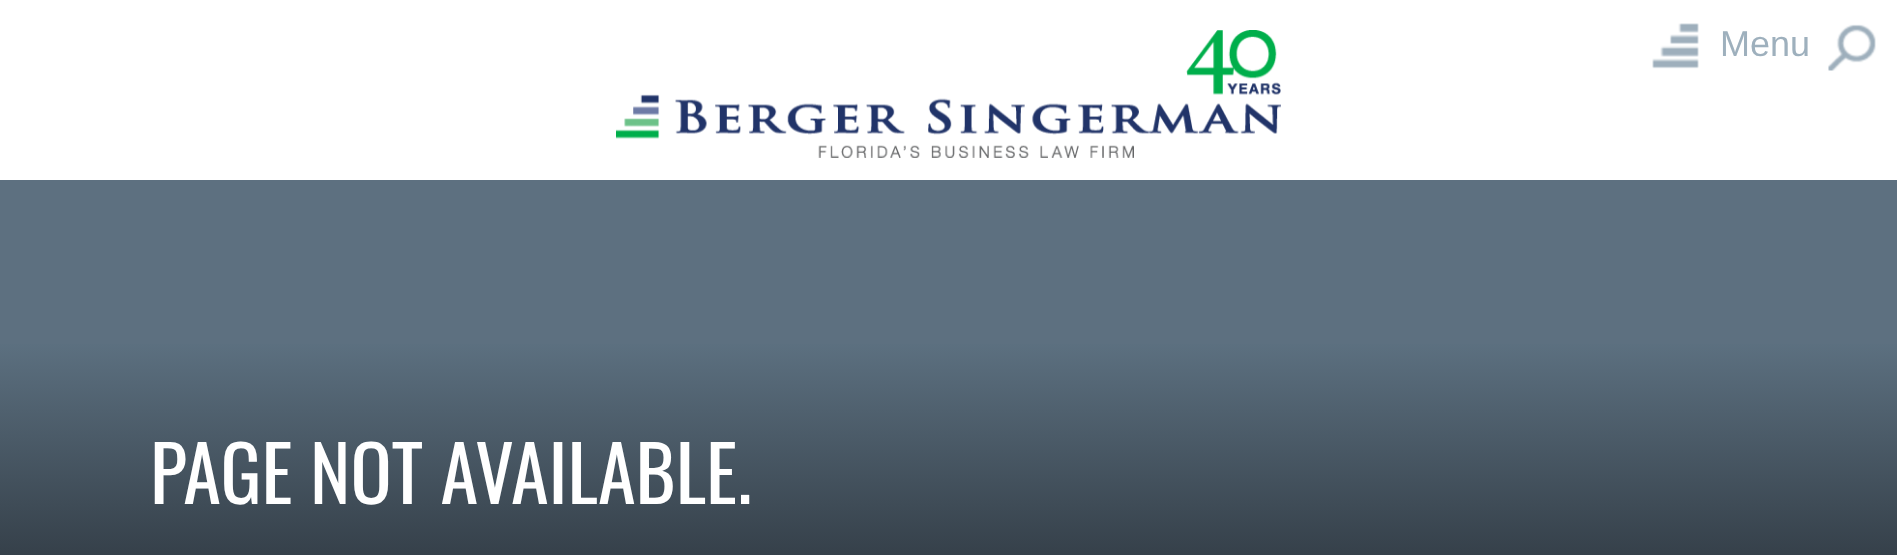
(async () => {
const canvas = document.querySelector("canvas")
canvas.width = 1897
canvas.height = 555
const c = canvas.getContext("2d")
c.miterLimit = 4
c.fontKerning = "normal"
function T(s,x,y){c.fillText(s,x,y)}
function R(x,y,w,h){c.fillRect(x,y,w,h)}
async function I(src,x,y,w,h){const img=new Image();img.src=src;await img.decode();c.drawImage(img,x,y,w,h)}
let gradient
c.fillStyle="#fff"
R(0,0,1897,555)
await I("1.png",616,30,665,128)
await I("2.png",1652,23,47,46)
c.font="36px Arimo"
c.fillStyle="#9eb0bd"
T("Menu",1720,56)
await I("3.png",1828,24,48,47)
c.fillStyle="#5d7080"
R(0,180,1897,164)
gradient = c.createLinearGradient(949,343,949,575)
gradient.addColorStop(0,"#5c7080")
gradient.addColorStop(1,"#323c45")
c.fillStyle = gradient
R(0,344,1897,211)
c.font="76.5px Oswald"
c.fillStyle="#fff"
T("PAGE NOT AVAILABLE.",150,504)
})()
